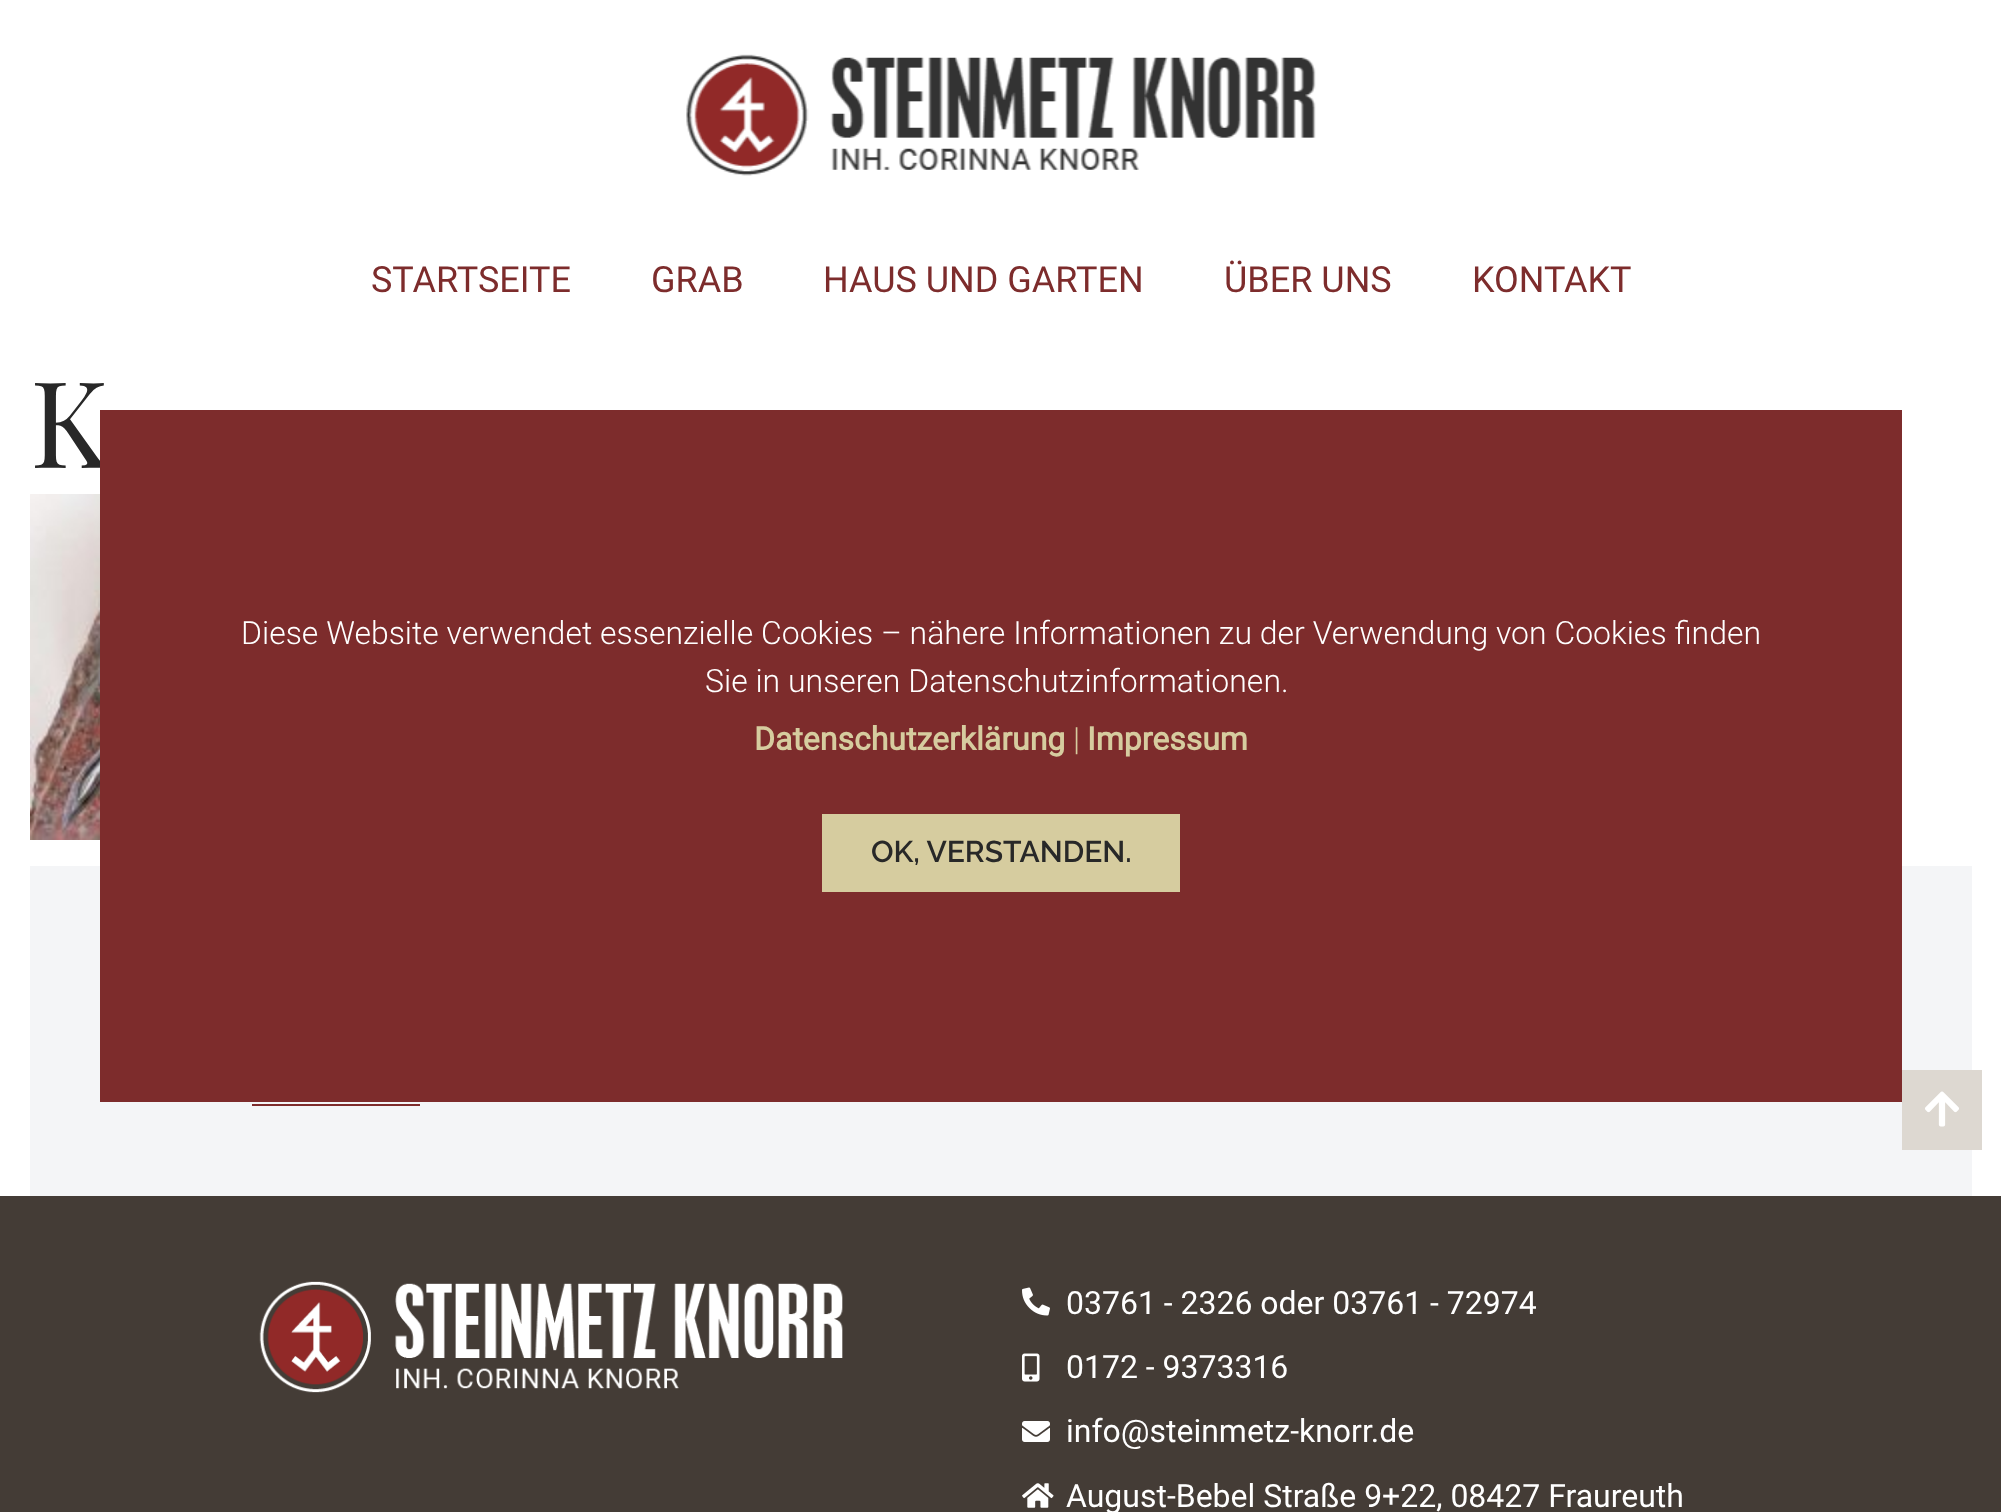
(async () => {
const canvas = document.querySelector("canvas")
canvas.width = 2001
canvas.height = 1512
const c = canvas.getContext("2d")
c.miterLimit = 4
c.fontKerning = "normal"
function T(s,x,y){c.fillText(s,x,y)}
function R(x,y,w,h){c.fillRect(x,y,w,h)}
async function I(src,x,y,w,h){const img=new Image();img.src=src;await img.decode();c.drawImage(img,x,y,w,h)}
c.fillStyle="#fff"
R(0,0,2001,1512)
await I("1.png",686,54,630,122)
c.font="36px Roboto"
c.fillStyle="#7d2c2c"
T("STARTSEITE",371,292)
T("GRAB",651,292)
T("HAUS UND GARTEN",823,292)
T("ÜBER UNS",1224,292)
T("KONTAKT",1472,292)
c.font="120px Playfair Display"
c.fillStyle="#282828"
T("K",30,468)
await I("2.png",30,494,70,346)
c.fillStyle="#f4f5f7"
R(30,866,1942,330)
c.fillStyle="#7d2c2c"
R(252,1104,168,2)
c.fillStyle="#ddd8d1"
R(1902,1070,80,80)
await I("3.png",1925,1091,34,36)
c.fillStyle="#443c36"
R(0,1196,2001,316)
await I("4.png",259,1281,584,112)
await I("5.png",1022,1287,28,29)
c.font="32px Roboto"
c.fillStyle="#fff"
T("03761 - 2326 oder 03761 - 72974",1066,1314)
await I("6.png",1022,1353,18,29)
T("0172 - 9373316",1066,1378)
await I("7.png",1022,1421,28,21)
T("info@steinmetz-knorr.de",1066,1442)
await I("8.png",1022,1483,32,25)
T("August-Bebel Straße 9+22, 08427 Fraureuth",1066,1507)
c.fillStyle="#7d2c2c"
R(100,410,1802,692)
c.font="300 32px Roboto"
c.fillStyle="#fff"
T("Diese Website verwendet essenzielle Cookies – nähere Informationen zu der Verwendung von Cookies finden",241,644)
T("Sie in unseren Datenschutzinformationen.",705,692)
c.font="bold 32px Roboto"
c.fillStyle="#d6cc9f"
T("Datenschutzerklärung",754,750)
c.font="300 32px Roboto"
T("|",1073,750)
c.font="bold 32px Roboto"
T("Impressum",1087,750)
R(822,814,358,78)
c.font="600 30px Raleway"
c.fillStyle="#282828"
T("OK, VERSTANDEN.",871,862)
})()
